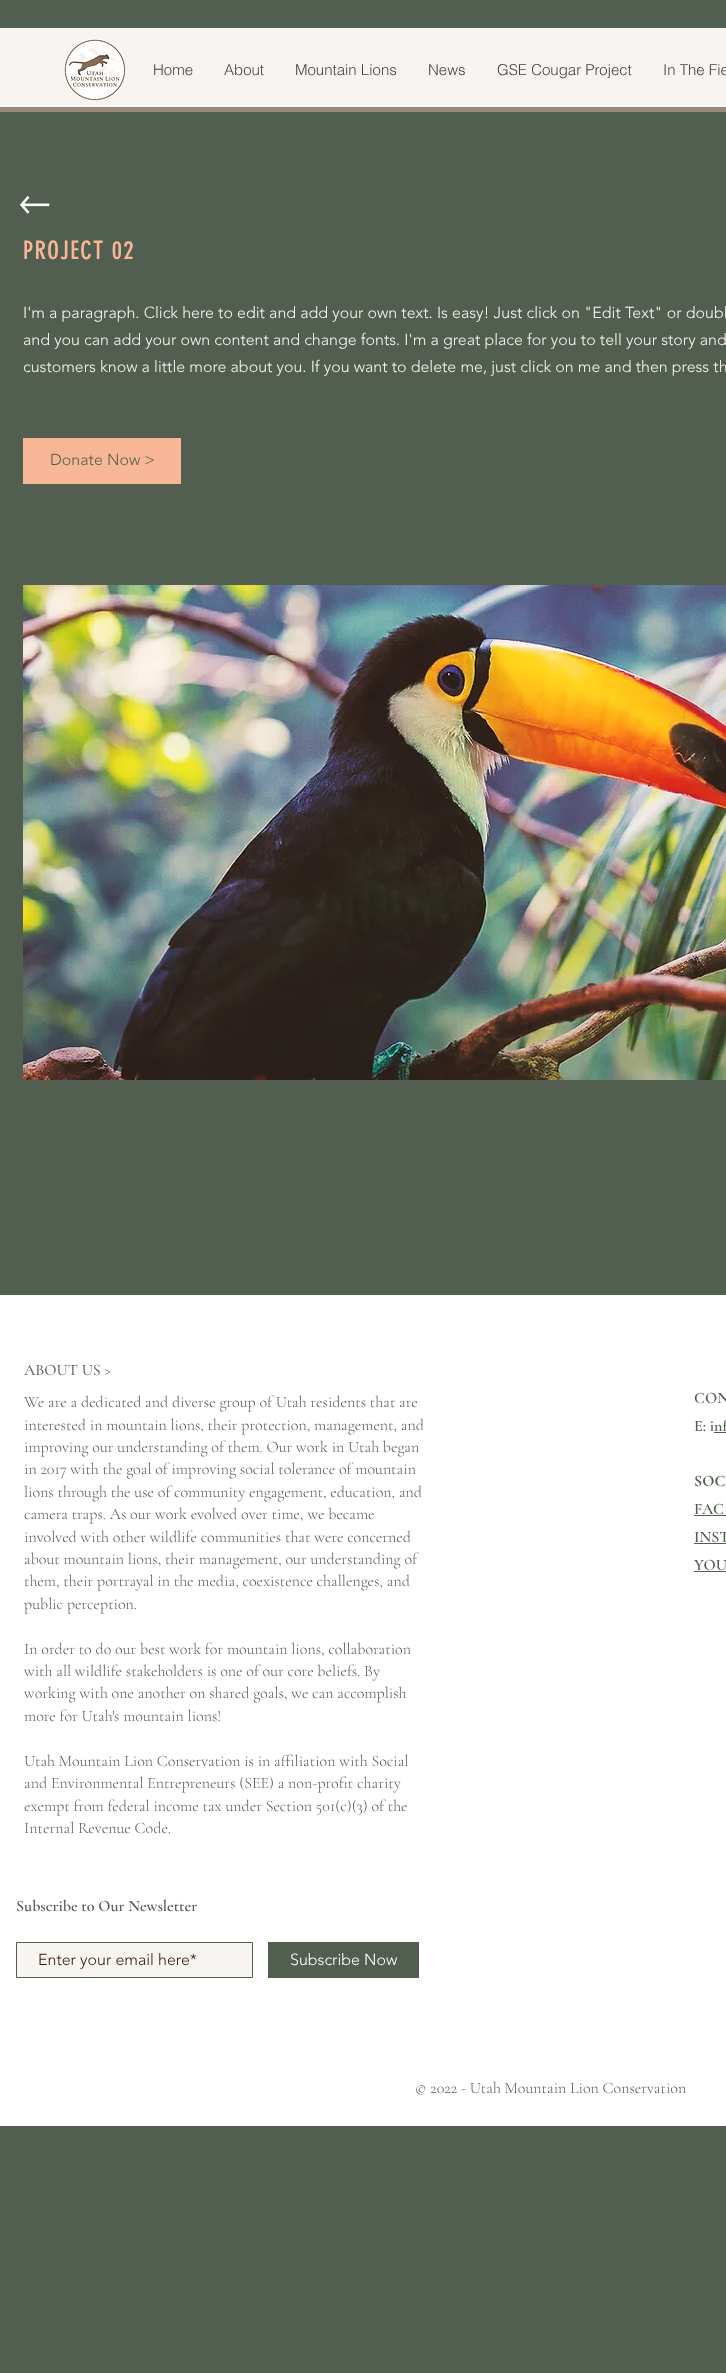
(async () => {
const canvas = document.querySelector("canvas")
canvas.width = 726
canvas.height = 2373
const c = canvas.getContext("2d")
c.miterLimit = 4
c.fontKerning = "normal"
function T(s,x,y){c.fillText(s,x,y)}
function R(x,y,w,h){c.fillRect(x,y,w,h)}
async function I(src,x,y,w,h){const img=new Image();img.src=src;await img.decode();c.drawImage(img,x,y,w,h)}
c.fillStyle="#525e50"
R(0,0,726,2373)
c.fillStyle="#f8f4f1"
R(0,28,726,79)
c.fillStyle="#99877a"
R(0,107,726,5)
await I("1.png",64,39,62,62)
c.font="300 15px helvetica"
c.fillStyle="#444"
T("Home",153,75)
T("About",224,75)
T("Mountain Lions",295,75)
T("News",428,75)
T("GSE Cougar Project",497,75)
T("In The Fie",663,75)
await I("2.png",20,196,30,18)
c.letterSpacing="1.25px"
c.font="25px 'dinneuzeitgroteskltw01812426'"
c.fillStyle="#f7b797"
T("PROJECT 02",23,259)
c.letterSpacing="0px"
c.font="300 16px 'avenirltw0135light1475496'"
c.fillStyle="#f8f4f1"
T("I'm a paragraph. Click here to edit and add your own text. Is easy! Just click on \"Edit Text\" or doubl",23,318)
T("and you can add your own content and change fonts. I'm a great place for you to tell your story and",23,345)
T("customers know a little more about you. If you want to delete me, just click on me and then press th",23,372)
c.fillStyle="#f7b797"
R(23,438,158,46)
c.fillStyle="#525e50"
T("Donate Now >",50,465)
await I("3.png",23,585,703,495)
c.fillStyle="#fff"
R(0,1295,726,831)
c.font="500 16px Cormorant Garamond"
c.fillStyle="#525e50"
T("ABOUT US >",24,1375)
c.font="300 16px Cormorant Garamond"
T("We are a dedicated and diverse group of Utah residents that are",24,1407)
T("interested in mountain lions, their protection, management, and",24,1430)
T("improving our understanding of them. Our work in Utah began",24,1452)
T("in 2017 with the goal of improving social tolerance of mountain",24,1474)
T("lions through the use of community engagement, education, and",24,1497)
T("camera traps. As our work evolved over time, we became",24,1519)
T("involved with other wildlife communities that were concerned",24,1542)
T("about mountain lions, their management, our understanding of",24,1564)
T("them, their portrayal in the media, coexistence challenges, and",24,1586)
T("public perception.",24,1609)
T("In order to do our best work for mountain lions, collaboration",24,1654)
T("with all wildlife stakeholders is one of our core beliefs. By",24,1676)
T("working with one another on shared goals, we can accomplish",24,1698)
T("more for Utah's mountain lions!",24,1721)
T("Utah Mountain Lion Conservation is in affiliation with Social",24,1766)
T("and Environmental Entrepreneurs (SEE) a non-profit charity",24,1788)
T("exempt from federal income tax under Section 501(c)(3) of the",24,1811)
T("Internal Revenue Code.",24,1833)
c.font="600 16px Cormorant Garamond"
T("CON",694,1403)
T("E: inf",694,1431)
R(714,1432,12,1)
c.font="bold 16px Cormorant Garamond"
T("SOC",694,1486)
c.font="600 16px Cormorant Garamond"
T("FAC",694,1514)
R(694,1515,32,1)
T("INST",694,1542)
R(694,1543,32,1)
T("YOU",694,1570)
R(694,1571,32,1)
T("Subscribe to Our Newsletter",16,1911)
c.fillStyle="#f8f4f1"
c.beginPath()
c.rect(16.5,1942.5,236,35)
c.fill()
c.strokeStyle="#525e50"
c.stroke()
c.font="300 16px 'avenirltw0135light1475496'"
c.fillStyle="#36190b"
T("Enter your email here*",38,1965)
c.fillStyle="#525e50"
R(268,1942,151,36)
c.fillStyle="#fff"
T("Subscribe Now",290,1965)
c.font="300 16px Cormorant Garamond"
c.fillStyle="#525e50"
T("© 2022 - Utah Mountain Lion Conservation",415,2093)
})()
